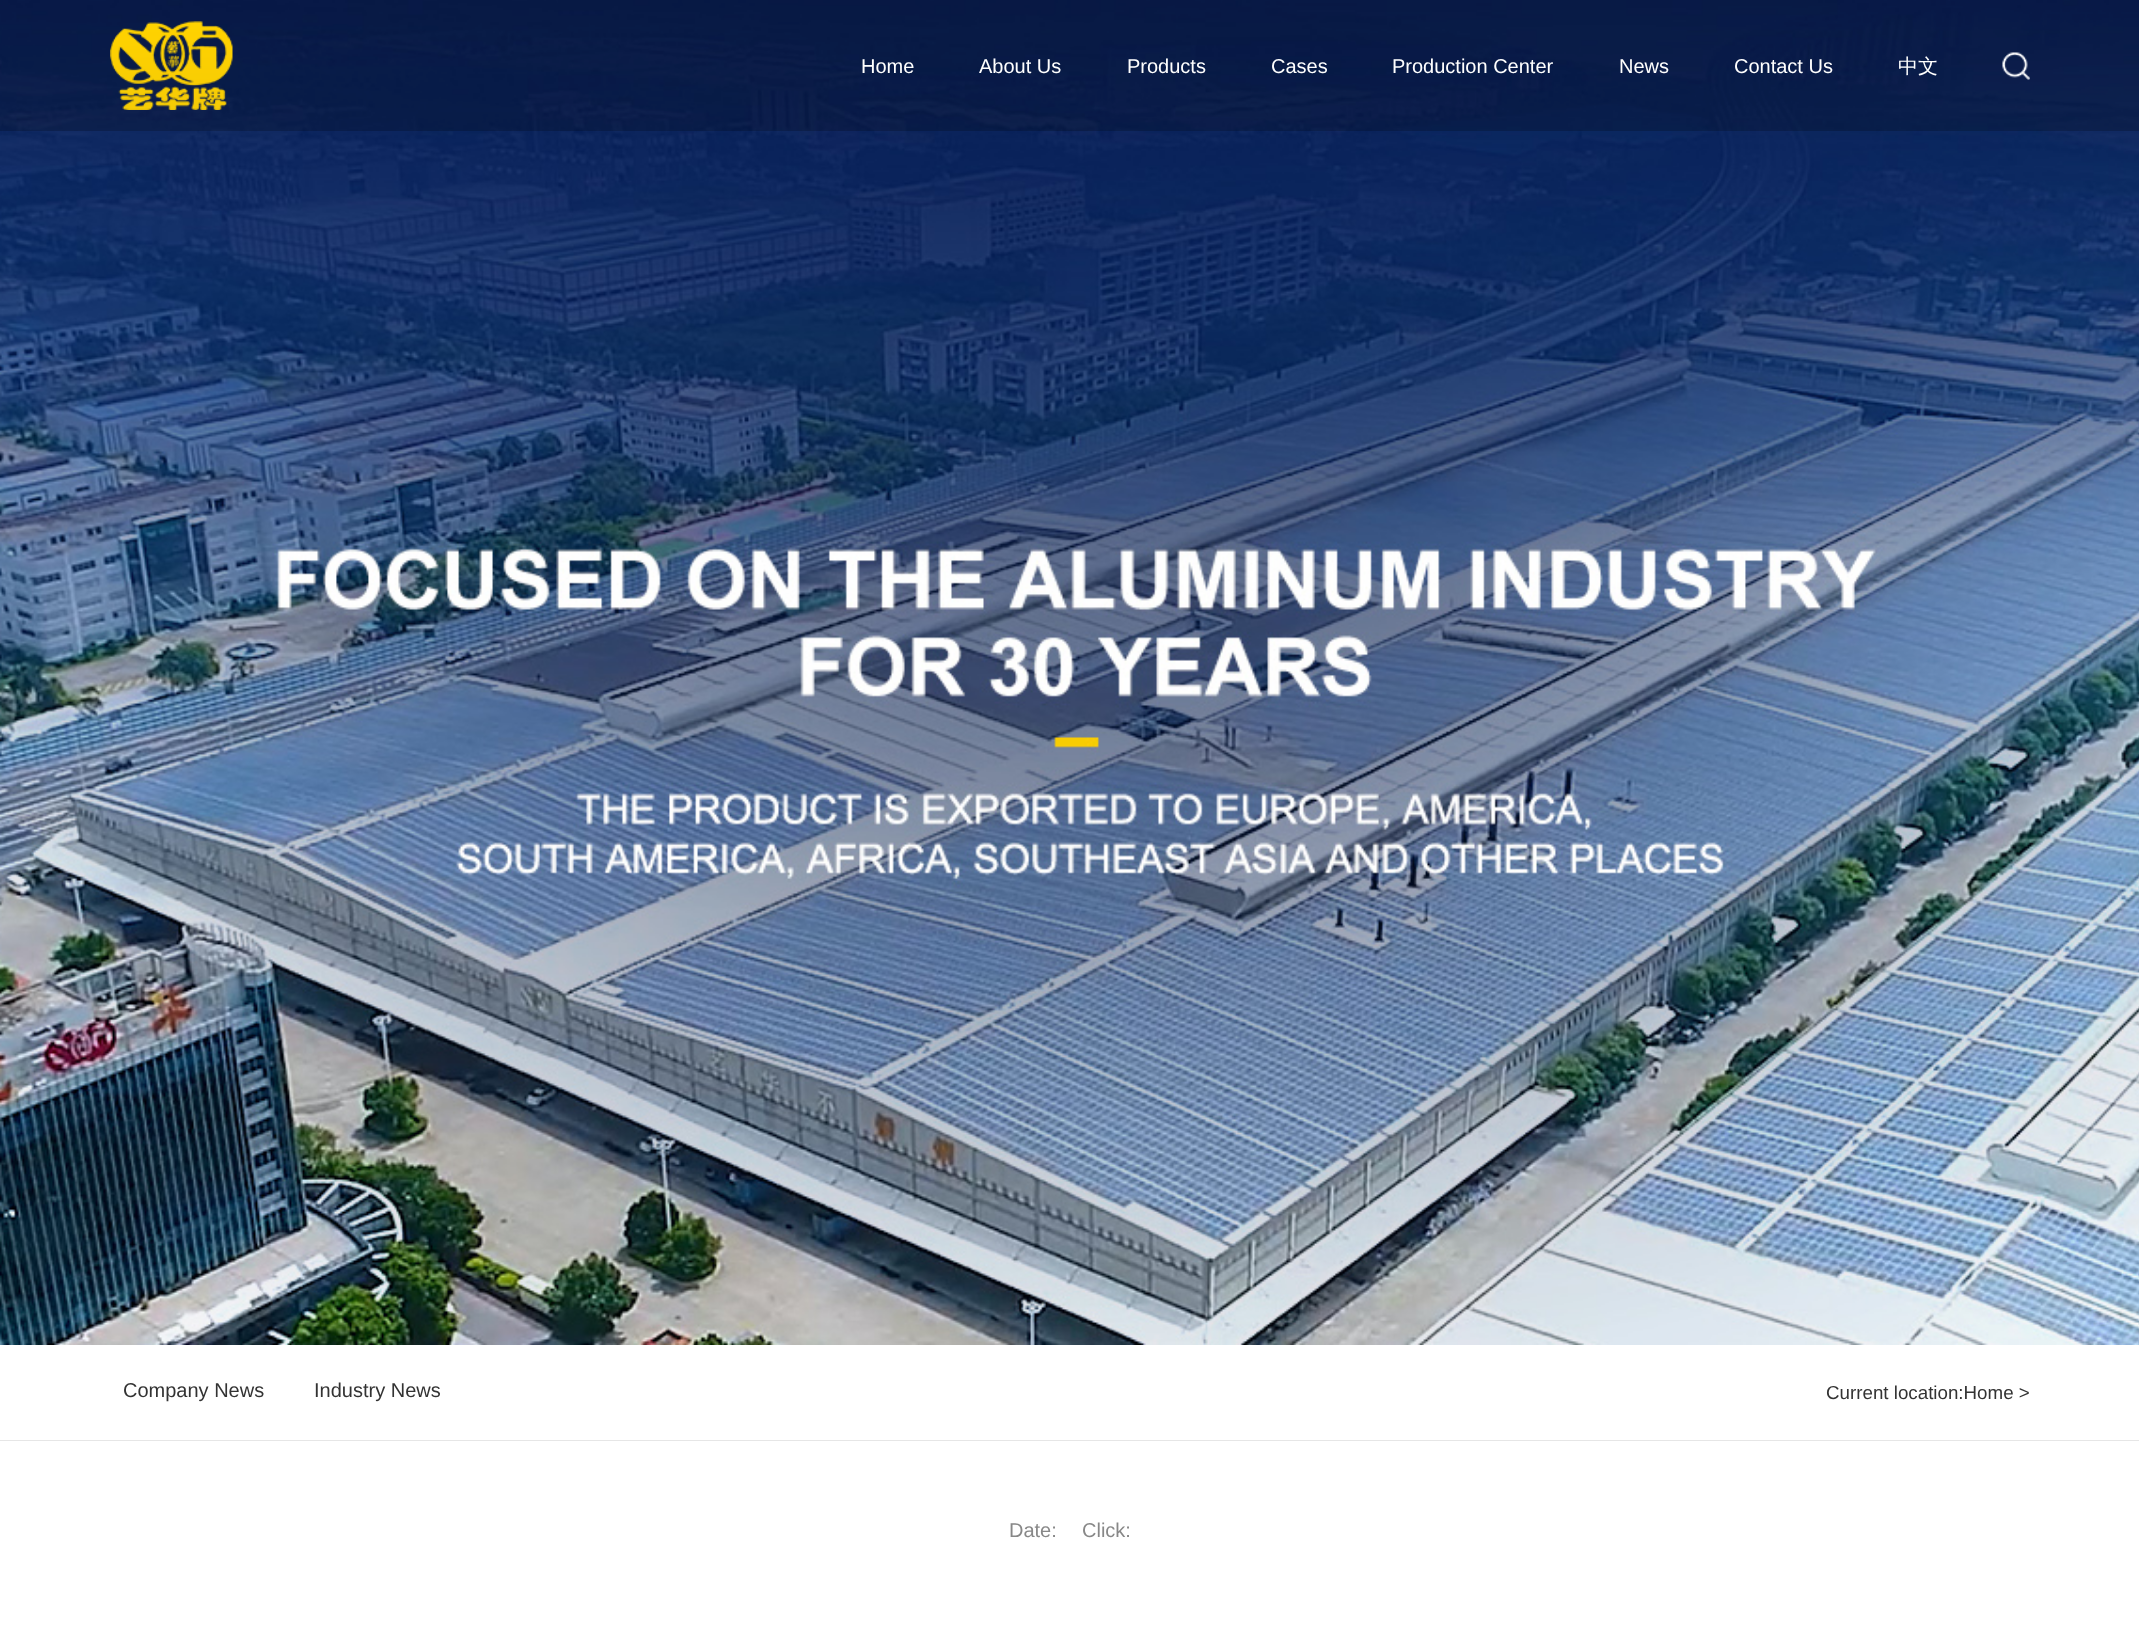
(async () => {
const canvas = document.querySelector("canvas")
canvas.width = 2139
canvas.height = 1640
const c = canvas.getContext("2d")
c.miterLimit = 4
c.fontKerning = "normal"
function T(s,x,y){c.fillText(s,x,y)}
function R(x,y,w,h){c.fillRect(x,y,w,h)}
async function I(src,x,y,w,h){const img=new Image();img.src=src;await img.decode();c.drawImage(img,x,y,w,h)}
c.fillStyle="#fff"
R(0,0,2139,1640)
await I("1.png",0,0,2139,1345)
c.fillStyle="#00000033"
R(0,0,2139,131)
await I("2.png",110,21,123,89)
c.font="20px Liberation Sans"
c.fillStyle="#fff"
T("Home",861,73)
T("About Us",979,73)
T("Products",1127,73)
T("Cases",1271,73)
T("Production Center",1392,73)
T("News",1619,73)
T("Contact Us",1734,73)
c.font="500 20px WenQuanYi Zen Hei"
T("中文",1898,73)
await I("3.png",2002,52,28,28)
c.fillStyle="#e6e6e6"
R(0,1440,2139,1)
c.font="20px Liberation Sans"
c.fillStyle="#333"
T("Company News",123,1397)
T("Industry News",314,1397)
c.font="18.75px Liberation Sans"
T("Current location:Home >",1826,1399)
c.font="20px Liberation Sans"
c.fillStyle="#888"
T("Date:",1009,1537)
T("Click:",1082,1537)
})()
